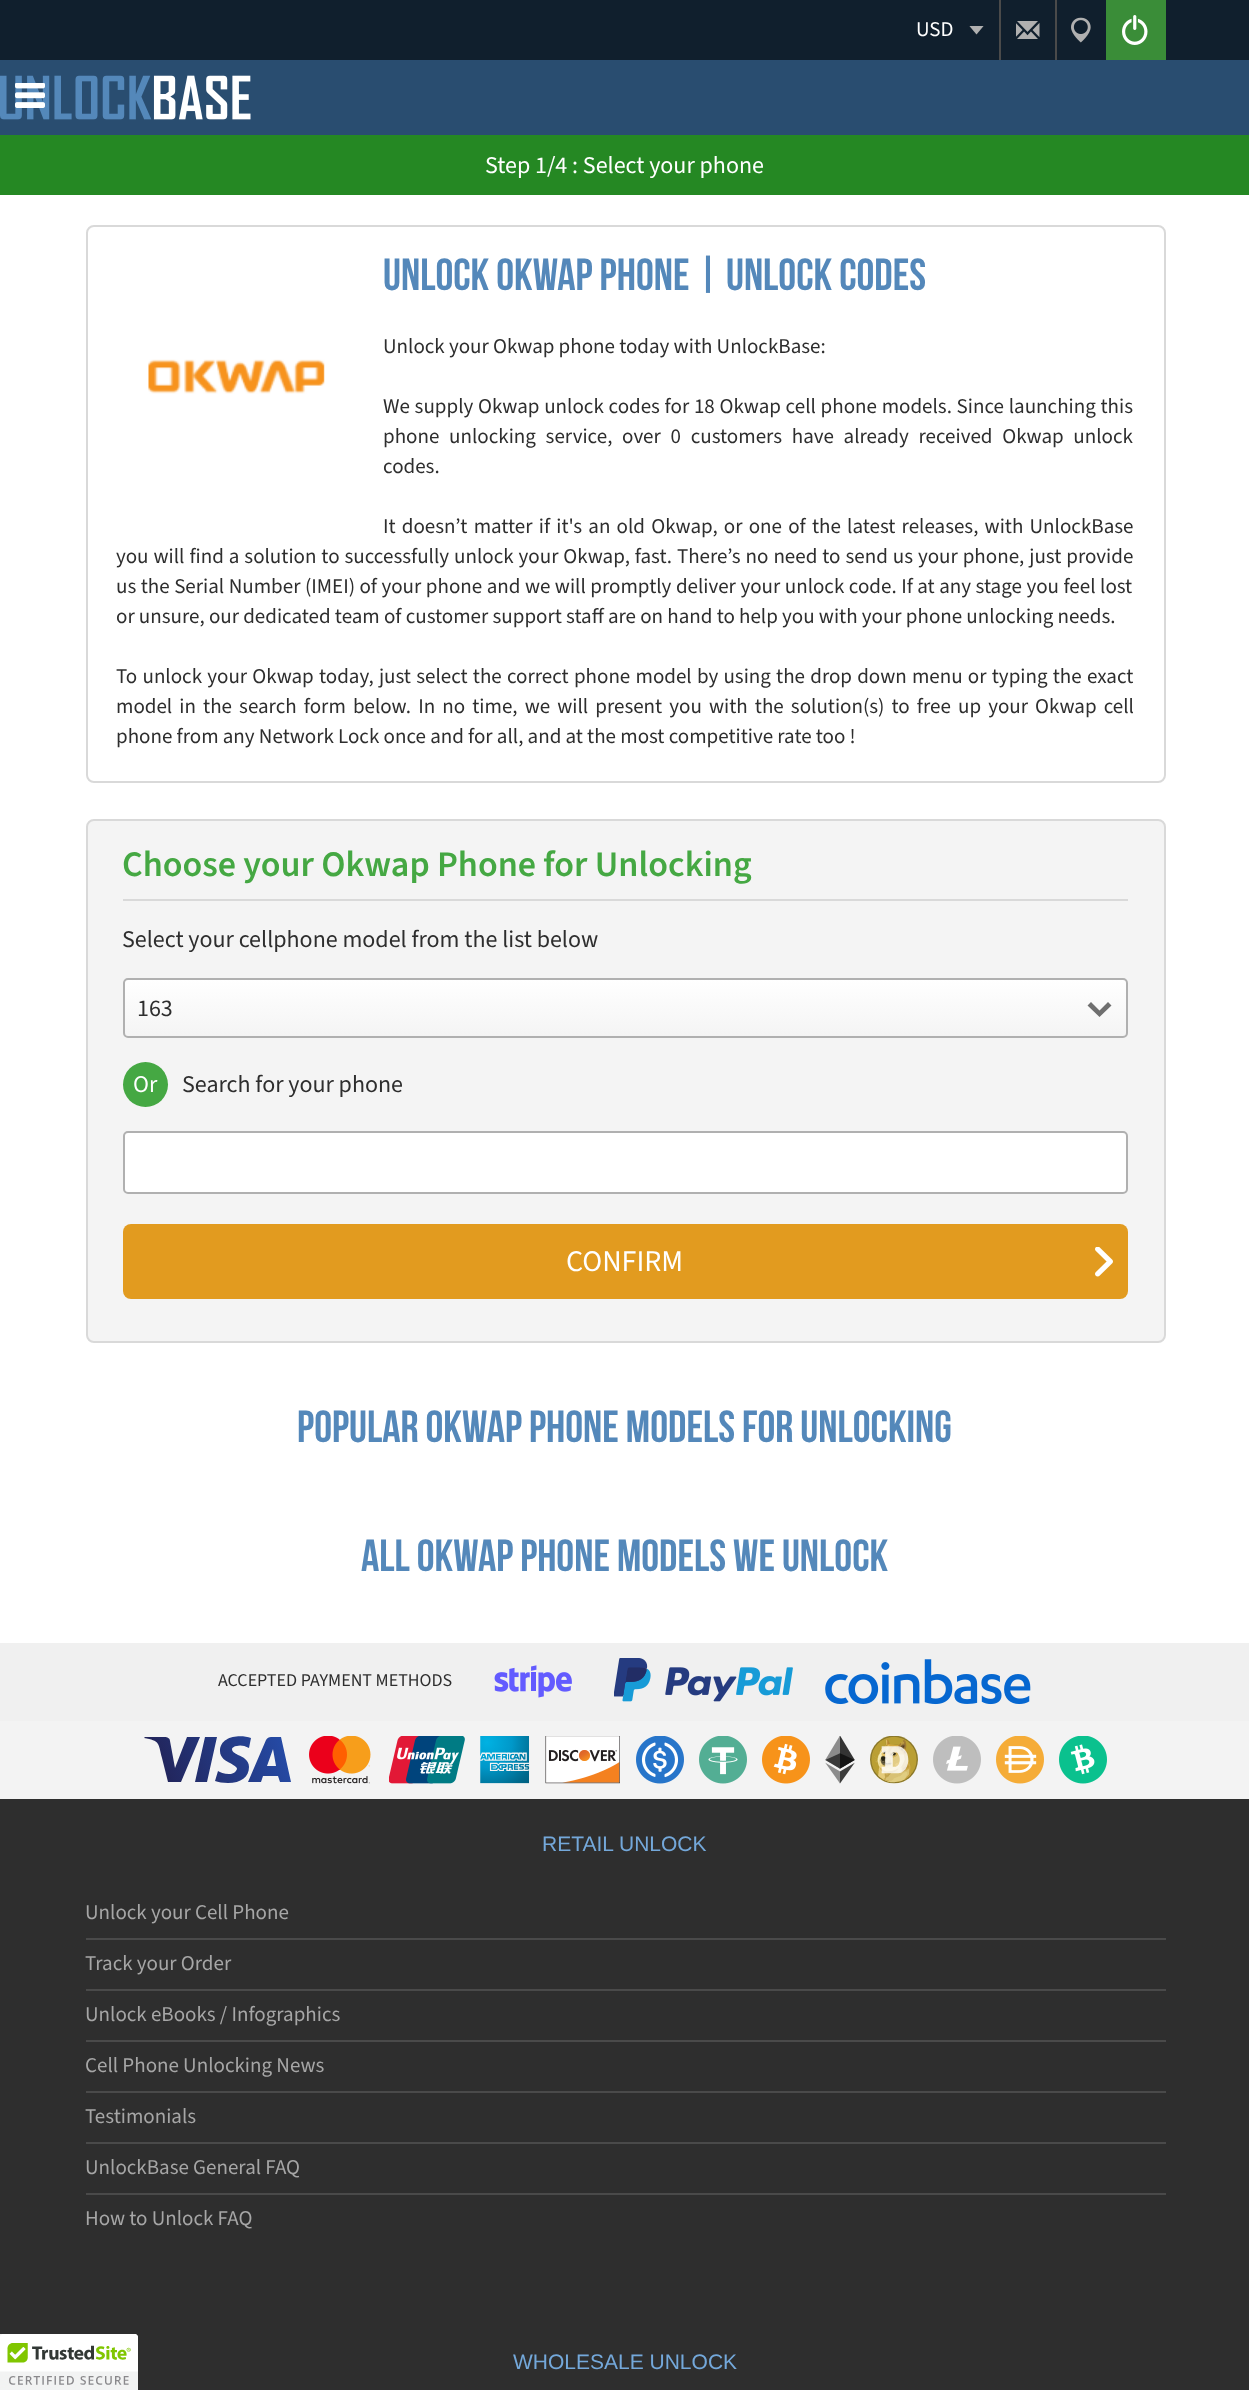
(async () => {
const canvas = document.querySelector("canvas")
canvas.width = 1249
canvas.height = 2390
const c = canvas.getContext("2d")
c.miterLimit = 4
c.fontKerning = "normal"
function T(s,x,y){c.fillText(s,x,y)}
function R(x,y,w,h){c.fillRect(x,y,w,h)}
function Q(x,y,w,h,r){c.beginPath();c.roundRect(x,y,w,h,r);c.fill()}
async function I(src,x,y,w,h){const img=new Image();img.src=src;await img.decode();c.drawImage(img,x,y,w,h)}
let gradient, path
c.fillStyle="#fff"
R(0,0,1249,2390)
c.fillStyle="#294d70"
R(0,60,1249,75)
c.fillStyle="#101f2d"
R(0,0,1249,60)
c.font="21px 'Source Sans 3'"
c.fillStyle="#fff"
T("USD",916,36)
c.save()
c.beginPath()
c.rect(969,26,15,9)
c.clip()
c.fillStyle="#b0b0b0"
path = new Path2D("M976.5 34.5l7.5-9h-15z")
c.fill(path)
c.restore()
c.fillStyle="#4a4a4a"
R(999,0,2,60)
await I("1.png",1016,21,24,18)
R(1055,0,2,60)
await I("2.png",1071,17,20,26)
c.fillStyle="#3a8d38"
R(1106,0,60,60)
await I("3.png",1122,15,26,30)
await I("4.png",0,75,251,45)
await I("5.png",15,83,30,25)
c.fillStyle="#258823"
R(0,135,1249,60)
c.font="24px 'Source Sans 3'"
c.fillStyle="#fff"
T("Step 1/4 : Select your phone",485,173)
c.beginPath()
c.roundRect(87,226,1078,556,7)
c.strokeStyle="#d9d9d9"
c.lineWidth=2
c.stroke()
c.font="bold 45px Bebas Neue"
c.fillStyle="#5488ba"
T("Unlock Okwap Phone | Unlock Codes",383,290)
c.font="21px 'Source Sans 3'"
c.fillStyle="#2e2e2e"
T("Unlock your Okwap phone today with UnlockBase:",383,353)
await I("6.png",148,359,177,35)
c.wordSpacing="0.5px"
T("We supply Okwap unlock codes for 18 Okwap cell phone models. Since launching this",383,413)
c.wordSpacing="5.5px"
T("phone unlocking service, over 0 customers have already received Okwap unlock",383,443)
c.wordSpacing="0px"
T("codes.",383,473)
c.wordSpacing="2px"
T("It doesn’t matter if it's an old Okwap, or one of the latest releases, with UnlockBase",383,533)
c.wordSpacing="0.75px"
T("you will find a solution to successfully unlock your Okwap, fast. There’s no need to send us your phone, just provide",116,563)
c.wordSpacing="0.3px"
T("us the Serial Number (IMEI) of your phone and we will promptly deliver your unlock code. If at any stage you feel lost",116,593)
c.wordSpacing="0px"
T("or unsure, our dedicated team of customer support staff are on hand to help you with your phone unlocking needs.",116,623)
c.wordSpacing="1px"
T("To unlock your Okwap today, just select the correct phone model by using the drop down menu or typing the exact",116,683)
c.wordSpacing="2.9px"
T("model in the search form below. In no time, we will present you with the solution(s) to free up your Okwap cell",116,713)
c.wordSpacing="0px"
T("phone from any Network Lock once and for all, and at the most competitive rate too !",116,743)
c.fillStyle="#f4f4f4"
c.beginPath()
c.roundRect(87,820,1078,522,7)
c.fill()
c.stroke()
c.fillStyle="#d9d9d9"
R(123,899,1005,2)
c.font="600 36px 'Source Sans 3'"
c.fillStyle="#45a843"
T("Choose your Okwap Phone for Unlocking",122,876)
c.font="24px 'Source Sans 3'"
c.fillStyle="#2e2e2e"
T("Select your cellphone model from the list below",122,947)
c.save()
c.beginPath()
c.roundRect(123,978,1005,60,5)
c.clip()
gradient = c.createLinearGradient(626,980,626,1037)
gradient.addColorStop(0,"#fff")
gradient.addColorStop(1,"#f4f4f4")
c.fillStyle = gradient
R(123,980,1005,57)
c.restore()
c.beginPath()
c.roundRect(124,979,1003,58,4)
c.strokeStyle="#b0b0b0"
c.stroke()
T("163",137,1016)
c.fillStyle="#6f6f6f"
path = new Path2D("M1087.5 1005.5l12 11.5l12-11.5l-3.5-3.5l-8.5 8.5l-8.5-8.5z")
c.fill(path)
c.fillStyle="#45a843"
c.beginPath()
c.arc(145.5,1084.5,22.5,0,7)
c.fill()
c.fillStyle="#fff"
T("Or",133,1092)
c.fillStyle="#2e2e2e"
T("Search for your phone",182,1092)
c.fillStyle="#fff"
c.beginPath()
c.roundRect(124,1132,1003,61,4)
c.fill()
c.stroke()
c.fillStyle="#e29b1f"
Q(123,1224,1005,75,8)
await I("7.png",1095,1247,18,30)
c.font="30px 'Source Sans 3'"
c.fillStyle="#fff"
T("CONFIRM",566,1271)
c.font="bold 45px Bebas Neue"
c.fillStyle="#5488ba"
T("Popular okwap Phone Models for Unlocking",297,1442)
T("All okwap phone models we unlock",361,1571)
c.fillStyle="#2e2e2e"
R(0,1799,1249,591)
c.fillStyle="#fff"
path = new Path2D("M0 2334h135c1.5 0 3 1.5 3 3v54h-138z")
c.fill(path)
await I("8.png",0,2334,138,56)
c.fillStyle="#f0f0f0"
R(0,1643,1249,78)
c.font="18px 'Source Sans 3'"
c.fillStyle="#2e2e2e"
T("ACCEPTED PAYMENT METHODS",218,1686)
await I("9.png",494,1665,78,33)
await I("10.png",614,1658,179,44)
await I("11.png",825,1659,206,46)
c.fillStyle="#f3f3f3"
R(0,1721,1249,78)
gradient = c.createLinearGradient(158,1782,281,1736)
gradient.addColorStop(0,"#222357")
gradient.addColorStop(1,"#254aa5")
c.fillStyle = gradient
path = new Path2D("M220 1751c0-15 20-17 31-13l-2 10c-5-3-10-3-12-2c-3 0-5 2-5 3c0 3 3 4 6 6c5 2 11 5 11 12c0 10-8 16-21 16c-5 0-10-1-13-2l3-10c2 1 6 3 11 3c4 0 7-2 8-5c0-2-2-3-7-6c-4-2-10-5-10-12zm-33-14h13l-19 45h-13l-6-24c-4-16-2-17-18-20l1-1h20c2 0 5 1 5 4l5 27zm18 0h12l-10 45h-12zm66 0h10l10 45h-11l-2-6h-15l-2 6h-13l18-42c1-2 3-3 5-3zm2 12l-6 17h9z")
c.fill(path,"evenodd")
await I("12.png",309,1736,62,48)
await I("13.png",389,1736,76,48)
await I("14.png",480,1736,50,48)
await I("15.png",545,1736,75,48)
await I("16.png",636,1736,48,48)
await I("17.png",699,1736,48,48)
await I("18.png",762,1736,48,48)
await I("19.png",825,1736,30,48)
await I("20.png",870,1736,48,48)
await I("21.png",933,1736,48,48)
await I("22.png",996,1736,48,48)
await I("23.png",1059,1736,48,48)
c.font="21px Liberation Sans"
c.fillStyle="#74a8da"
T("RETAIL UNLOCK",542,1851)
c.font="21px 'Source Sans 3'"
c.fillStyle="#a6a6a6"
T("Unlock your Cell Phone",85,1919)
c.fillStyle="#4a4a4a"
R(86,1938,1080,2)
c.fillStyle="#a6a6a6"
T("Track your Order",85,1970)
c.fillStyle="#4a4a4a"
R(86,1989,1080,2)
c.fillStyle="#a6a6a6"
T("Unlock eBooks / Infographics",85,2021)
c.fillStyle="#4a4a4a"
R(86,2040,1080,2)
c.fillStyle="#a6a6a6"
T("Cell Phone Unlocking News",85,2072)
c.fillStyle="#4a4a4a"
R(86,2091,1080,2)
c.fillStyle="#a6a6a6"
T("Testimonials",85,2123)
c.fillStyle="#4a4a4a"
R(86,2142,1080,2)
c.fillStyle="#a6a6a6"
T("UnlockBase General FAQ",85,2174)
c.fillStyle="#4a4a4a"
R(86,2193,1080,2)
c.fillStyle="#a6a6a6"
T("How to Unlock FAQ",85,2225)
c.font="21px Liberation Sans"
c.fillStyle="#74a8da"
T("WHOLESALE UNLOCK",513,2369)
})()
